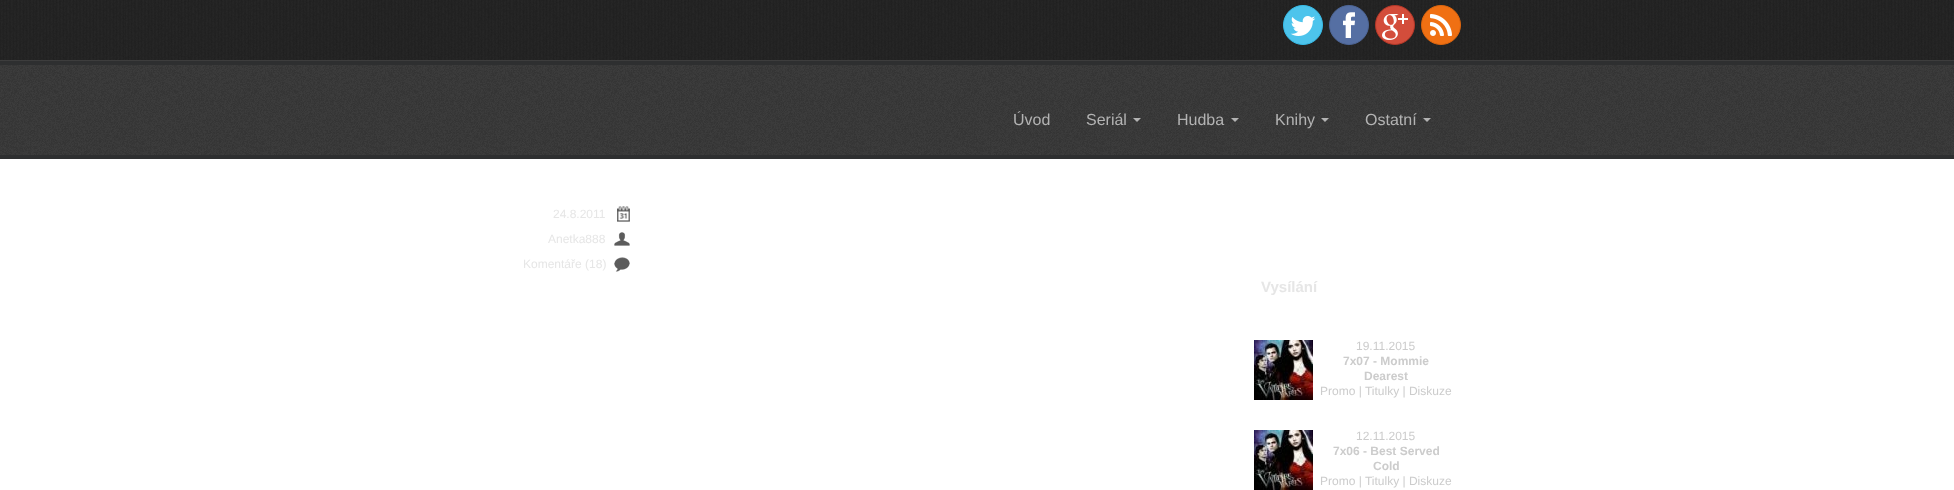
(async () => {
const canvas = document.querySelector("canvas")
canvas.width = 1954
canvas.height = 490
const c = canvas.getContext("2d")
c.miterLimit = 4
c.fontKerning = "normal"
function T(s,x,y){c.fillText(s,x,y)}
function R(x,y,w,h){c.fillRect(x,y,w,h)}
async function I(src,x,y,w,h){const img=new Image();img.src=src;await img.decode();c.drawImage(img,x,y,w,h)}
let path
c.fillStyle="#fff"
R(0,0,1954,490)
await I("1.png",0,0,1954,60)
c.fillStyle="#3d3d3d"
R(0,60,1954,1)
c.fillStyle="#4dc4ec"
c.beginPath()
c.arc(1303,25,19.5,0,7)
c.fill()
c.strokeStyle="#37bce9"
c.stroke()
await I("2.png",1290,16,26,20)
c.fillStyle="#556fa3"
c.beginPath()
c.arc(1349,25,19.5,0,7)
c.fill()
c.strokeStyle="#4d6595"
c.stroke()
await I("3.png",1343,12,12,26)
c.fillStyle="#d34d3b"
c.beginPath()
c.arc(1395,25,19.5,0,7)
c.fill()
c.strokeStyle="#b43727"
c.stroke()
await I("4.png",1382,14,26,26)
c.fillStyle="#f07013"
c.beginPath()
c.arc(1441,25,19.5,0,7)
c.fill()
c.strokeStyle="#dc650e"
c.stroke()
await I("5.png",1430,14,22,22)
await I("6.png",0,65,1954,90)
c.fillStyle="#2e2f30"
R(0,61,1954,4)
R(0,155,1954,4)
c.font="16px Liberation Sans"
c.fillStyle="#b3b3b3"
T("Úvod",1013,125)
T("Seriál",1086,125)
path = new Path2D("M1133 118h8l-4 4z")
c.fill(path)
T("Hudba",1177,125)
path = new Path2D("M1231 118h8l-4 4z")
c.fill(path)
T("Knihy",1275,125)
path = new Path2D("M1321 118h8l-4 4z")
c.fill(path)
T("Ostatní",1365,125)
path = new Path2D("M1423 118h8l-4 4z")
c.fill(path)
await I("7.png",617,206,13,16)
c.font="12px Liberation Sans"
c.fillStyle="#e6e6e6"
T("24.8.2011",553,218)
await I("8.png",614,232,16,14)
T("Anetka888",548,243)
await I("9.png",614,257,16,15)
T("Komentáře (18)",523,268)
c.font="bold 15px Liberation Sans"
T("Vysílání",1261,292)
await I("10.png",1254,340,59,60)
c.font="12px Liberation Sans"
c.fillStyle="#ccc"
T("19.11.2015",1356,350)
c.font="bold 12px Liberation Sans"
T("7x07 - Mommie",1343,365)
T("Dearest",1364,380)
c.font="12px Liberation Sans"
T("Promo | Titulky | Diskuze",1320,395)
await I("10.png",1254,430,59,60)
T("12.11.2015",1356,440)
c.font="bold 12px Liberation Sans"
T("7x06 - Best Served",1333,455)
T("Cold",1373,470)
c.font="12px Liberation Sans"
T("Promo | Titulky | Diskuze",1320,485)
})()
